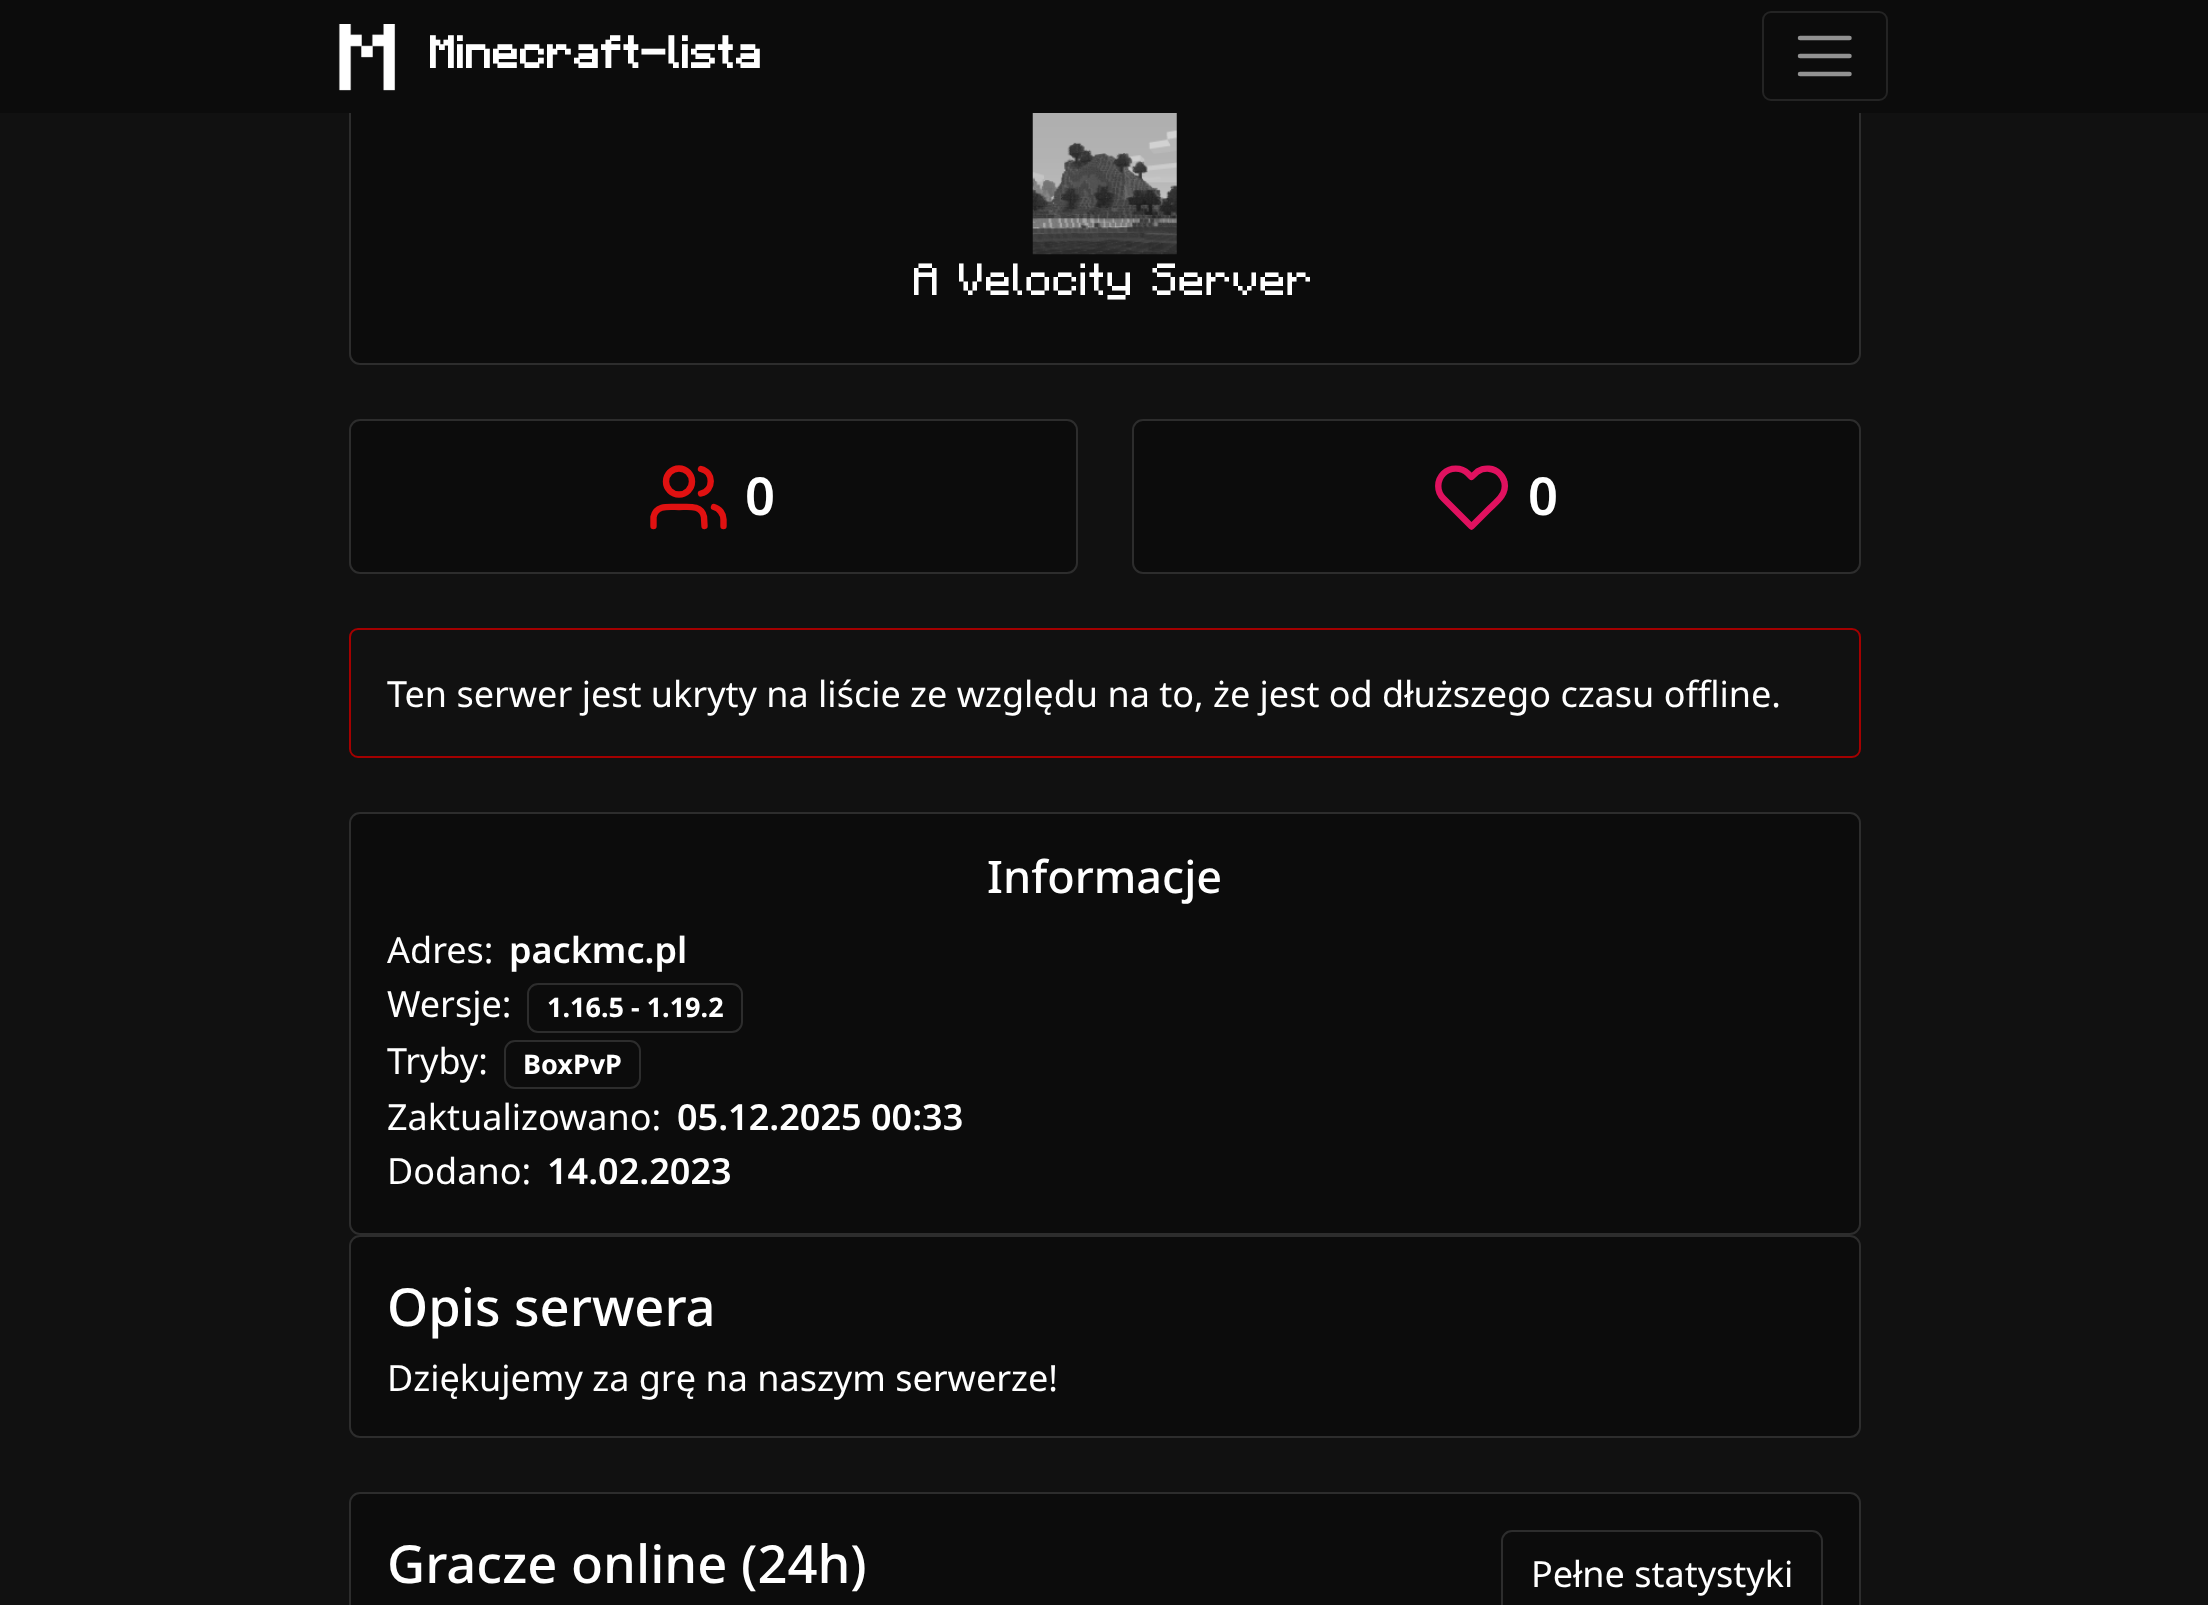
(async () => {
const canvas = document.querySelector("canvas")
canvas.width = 2208
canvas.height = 1605
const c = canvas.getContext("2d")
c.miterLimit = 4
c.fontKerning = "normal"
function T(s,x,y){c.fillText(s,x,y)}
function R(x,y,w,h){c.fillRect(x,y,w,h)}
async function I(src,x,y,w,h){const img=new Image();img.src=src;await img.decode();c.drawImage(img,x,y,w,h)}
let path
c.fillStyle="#111"
R(0,0,2208,1605)
c.fillStyle="#0c0c0c"
c.beginPath()
c.roundRect(350,73,1510,291,10)
c.fill()
c.strokeStyle="#2d2d2d"
c.lineWidth=2
c.stroke()
R(0,0,2208,113)
await I("1.png",338,24,58,67)
c.font="bold 45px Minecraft"
c.fillStyle="#fff"
T("Minecraft-lista",430,68)
c.beginPath()
c.roundRect(1763,12,124,88,8)
c.strokeStyle="#242424"
c.stroke()
path = new Path2D("M1800 38h49.5m-49.5 18h49.5m-49.5 18h49.5")
c.strokeStyle="#929292"
c.lineWidth=4.5
c.lineCap="round"
c.stroke(path)
await I("2.png",1032,113,145,142)
c.save()
c.beginPath()
c.rect(914,254,400,54)
c.clip()
c.font="45px Minecraft"
T("A Velocity Server",914,295)
c.restore()
c.fillStyle="#0c0c0c"
c.beginPath()
c.roundRect(350,420,727,153,10)
c.fill()
c.strokeStyle="#2d2d2d"
c.lineWidth=2
c.stroke()
path = new Path2D("M704.5 526l-.5-9c-2.5-12.5-15.5-10-25-10c-9.5 0-23-2.5-25.5 10v9")
c.strokeStyle="#e01111"
c.lineWidth=6.4
c.lineJoin="round"
c.stroke(path)
c.beginPath()
c.arc(679,481.5,13,0,7)
c.stroke()
path = new Path2D("M723.5 526v-6.5c0-5.5-4-11-9.5-12.5")
c.stroke(path)
path = new Path2D("M701 469c13 3 13 21.5 0 24.5")
c.stroke(path)
c.font="600 52.5px Noto Sans"
c.fillStyle="#fff"
T("0",745,515)
c.fillStyle="#0c0c0c"
c.beginPath()
c.roundRect(1133,420,727,153,10)
c.fill()
c.strokeStyle="#2d2d2d"
c.lineWidth=2
c.lineJoin="miter"
c.stroke()
path = new Path2D("M1499.5 473.5c-5.5-5.5-15-6.5-22-2l-6 5.5l-3.5-3.5c-6.5-6.5-18-6.5-24.5 0c-7 7-7 18 0 25l28 28l16.5-16.5c7.5-7.5 19-15 16.5-27.5c-.5-3-2.5-6.5-5-9z")
c.strokeStyle="#e0115f"
c.lineWidth=6.4
c.lineJoin="round"
c.stroke(path)
c.fillStyle="#fff"
T("0",1528,515)
c.beginPath()
c.roundRect(350,629,1510,128,8)
c.strokeStyle="#a40000"
c.lineWidth=2
c.lineJoin="miter"
c.stroke()
c.font="36px Noto Sans"
T("Ten serwer jest ukryty na liście ze względu na to, że jest od dłuższego czasu offline.",387,707)
c.fillStyle="#0c0c0c"
c.beginPath()
c.roundRect(350,813,1510,421,10)
c.fill()
c.strokeStyle="#2d2d2d"
c.stroke()
c.font="500 45px Noto Sans"
c.fillStyle="#fff"
T("Informacje",987,893)
c.font="36px Noto Sans"
T("Adres:",387,963)
c.font="600 36px Noto Sans"
T("packmc.pl",509,963)
c.font="36px Noto Sans"
T("Wersje:",387,1017)
c.beginPath()
c.roundRect(528,984,214,48,10)
c.stroke()
c.font="bold 27px Noto Sans"
T("1.16.5 - 1.19.2",547,1017)
c.font="36px Noto Sans"
T("Tryby:",387,1074)
c.beginPath()
c.roundRect(505,1041,135,47,10)
c.stroke()
c.font="bold 27px Noto Sans"
T("BoxPvP",523,1074)
c.font="36px Noto Sans"
T("Zaktualizowano:",387,1130)
c.font="600 36px Noto Sans"
T("05.12.2025 00:33",677,1130)
c.font="36px Noto Sans"
T("Dodano:",387,1184)
c.font="600 36px Noto Sans"
T("14.02.2023",547,1184)
c.fillStyle="#0c0c0c"
c.beginPath()
c.roundRect(350,1236,1510,201,10)
c.fill()
c.stroke()
c.font="500 52.5px Noto Sans"
c.fillStyle="#fff"
T("Opis serwera",387,1326)
c.font="36px Noto Sans"
T("Dziękujemy za grę na naszym serwerze!",387,1391)
c.fillStyle="#0c0c0c"
c.beginPath()
c.roundRect(350,1493,1510,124,10)
c.fill()
c.stroke()
c.font="500 52.5px Noto Sans"
c.fillStyle="#fff"
T("Gracze online (24h)",387,1583)
c.beginPath()
c.roundRect(1502,1531,320,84,10)
c.stroke()
c.font="36px Noto Sans"
T("Pełne statystyki",1531,1587)
})()
